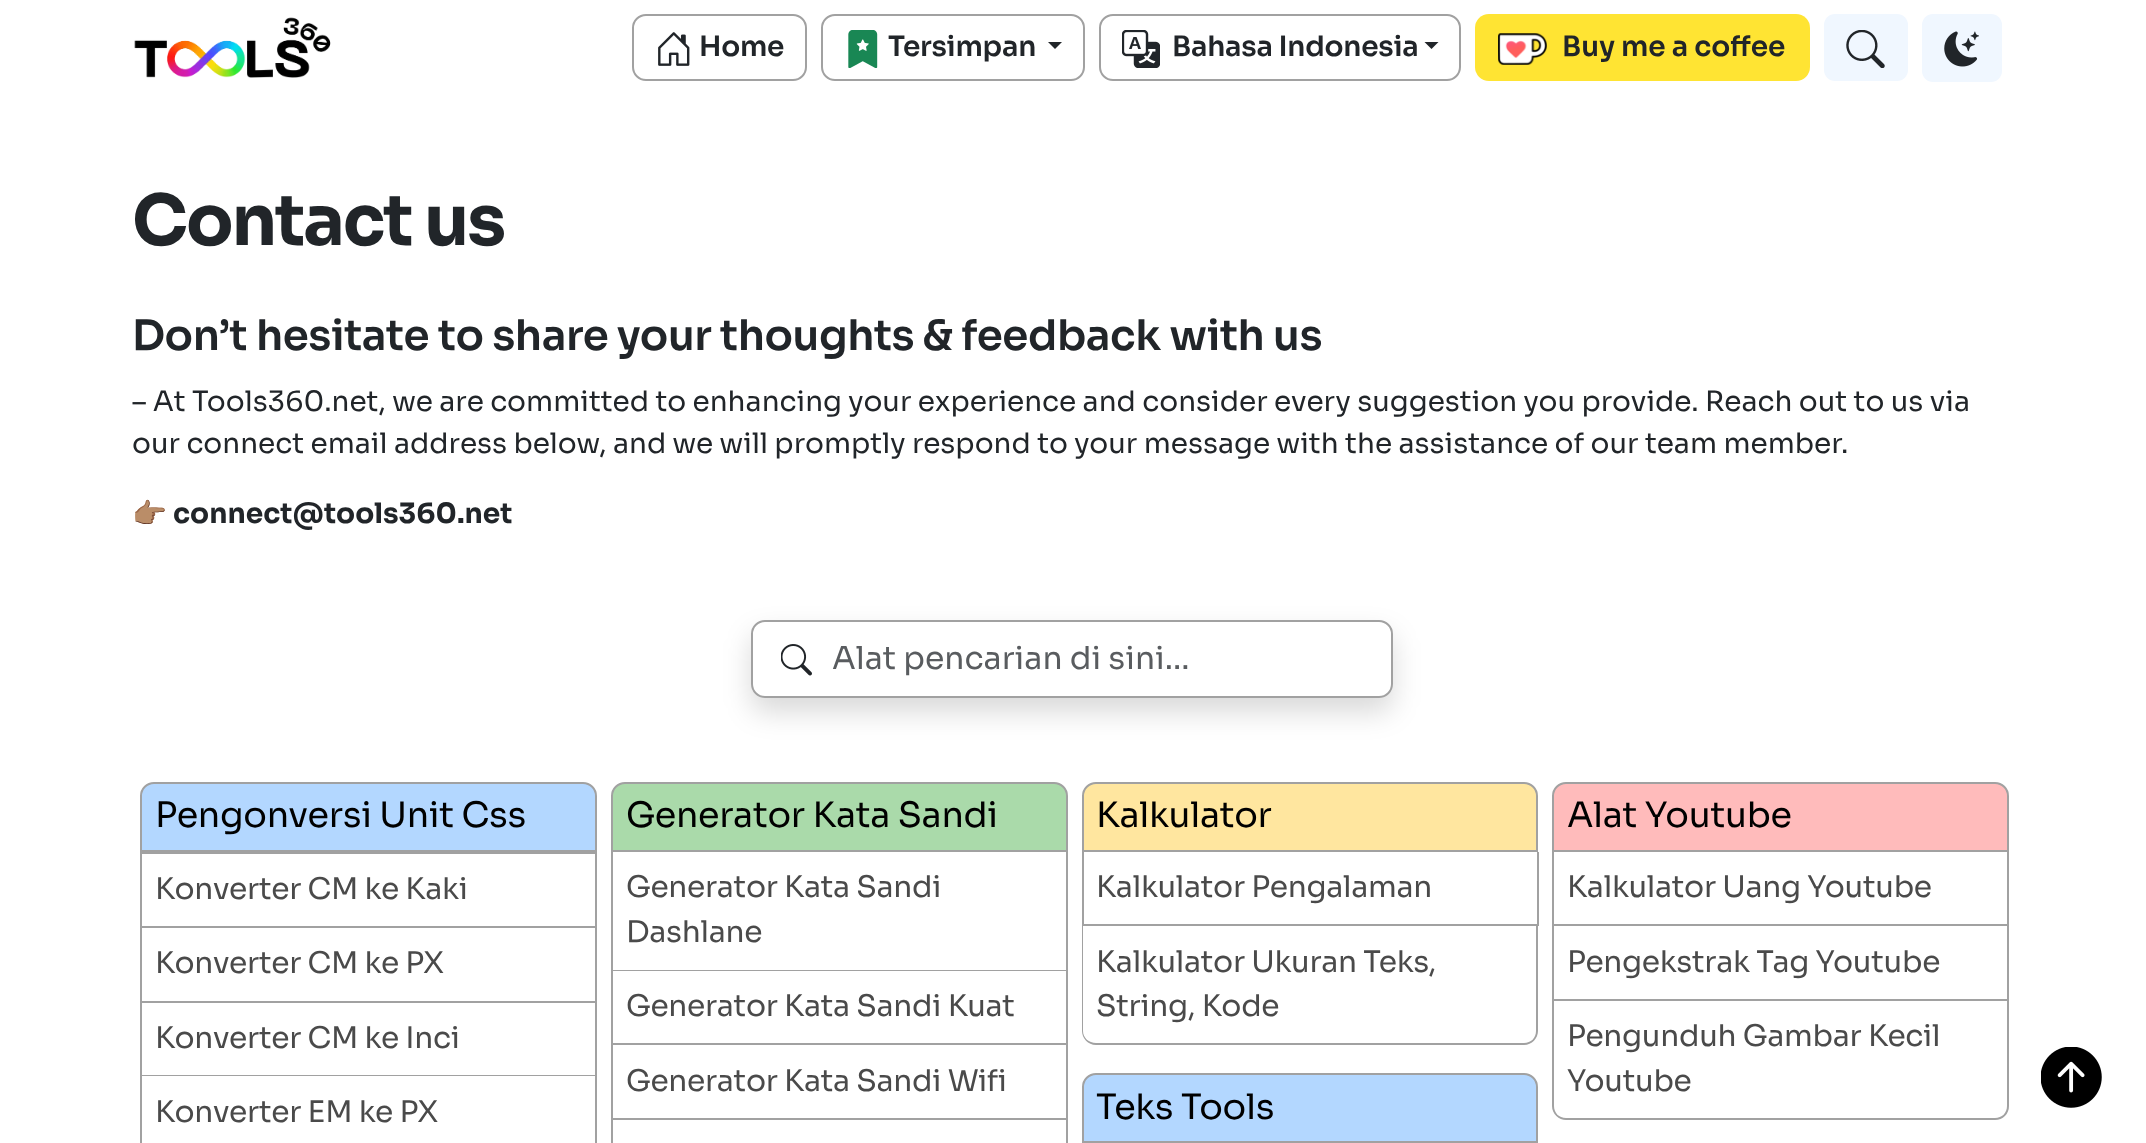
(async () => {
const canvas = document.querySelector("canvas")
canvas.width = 2146
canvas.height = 1143
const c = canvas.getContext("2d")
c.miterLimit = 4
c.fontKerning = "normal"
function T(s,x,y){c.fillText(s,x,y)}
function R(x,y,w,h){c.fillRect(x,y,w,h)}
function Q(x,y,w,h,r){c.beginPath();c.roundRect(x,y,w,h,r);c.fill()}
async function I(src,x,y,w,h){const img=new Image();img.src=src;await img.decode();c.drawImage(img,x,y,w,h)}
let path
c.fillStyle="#fff"
R(0,0,2146,1143)
await I("1.png",134,17,197,61)
c.beginPath()
c.roundRect(633,15,173,65,13)
c.strokeStyle="#a1a1a1"
c.lineWidth=2
c.stroke()
await I("2.png",658,32,32,34)
c.letterSpacing="-0.25px"
c.font="600 28px Sora"
c.fillStyle="#212529"
T("Home",699,56)
c.beginPath()
c.roundRect(822,15,262,65,13)
c.stroke()
await I("3.png",848,30,30,38)
T("Tersimpan",888,56)
path = new Path2D("M1048 42h14l-7 7z")
c.fill(path)
c.beginPath()
c.roundRect(1100,15,360,65,13)
c.stroke()
await I("4.png",1122,30,38,38)
T("Bahasa Indonesia",1172,56)
path = new Path2D("M1424.5 42h14l-7 7z")
c.fill(path)
c.fillStyle="#ffe433"
Q(1475,14,335,67,14)
await I("5.png",1498,33,49,32)
c.letterSpacing="0px"
c.fillStyle="#212529"
T("Buy me a coffee",1562,56)
c.fillStyle="#f0f7ff"
Q(1824,14,84,67,11)
await I("6.png",1846,30,39,38)
Q(1922,14,80,68,11)
await I("7.png",1944,31,35,36)
c.letterSpacing="-2.1px"
c.font="bold 70px Sora"
c.fillStyle="#212529"
T("Contact us",132,245)
c.letterSpacing="-0.42px"
c.font="600 42px Sora"
T("Don’t hesitate to share your thoughts & feedback with us",132,350)
c.letterSpacing="0px"
c.font="28px Sora"
T("– At Tools360.net, we are committed to enhancing your experience and consider every suggestion you provide. Reach out to us via",132,411)
T("our connect email address below, and we will promptly respond to your message with the assistance of our team member.",132,453)
c.font="bold 28px Noto Color Emoji"
T("👉🏽",132,523)
c.font="bold 28px Sora"
T("connect@tools360.net",173,523)
c.save()
path = new Path2D("M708 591h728v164h-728zm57 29h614c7.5 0 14 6.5 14 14v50c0 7.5-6.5 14-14 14h-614c-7.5 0-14-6.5-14-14v-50c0-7.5 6.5-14 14-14z")
c.clip(path,"evenodd")
c.fillStyle="#00000026"
c.filter="blur(14px)"
c.beginPath()
c.roundRect(751,634,642,78,14)
c.fill()
c.filter="none"
c.restore()
c.beginPath()
c.roundRect(752,621,640,76,13)
c.stroke()
await I("8.png",781,644,31,32)
c.font="31.5px Sora"
c.fillStyle="#595c5f"
T("Alat pencarian di sini...",832,669)
c.fillStyle="#b3d7ff"
c.beginPath()
c.roundRect(141,783,455,68,[13,13,0,0])
c.fill()
c.stroke()
c.letterSpacing="-0.3px"
c.font="35px Sora"
c.fillStyle="#000"
T("Pengonversi Unit Css",155,827)
c.strokeRect(141,853,455,74)
c.font="29.75px Sora"
c.fillStyle="#4a4a4a"
T("Konverter CM ke Kaki",155,899)
c.fillStyle="#a1a1a1"
R(595,928,2,215)
R(140,1001,457,2)
R(140,928,2,75)
c.fillStyle="#4a4a4a"
T("Konverter CM ke PX",155,973)
c.fillStyle="#a1a1a1"
R(140,1075,457,1)
R(140,1003,2,140)
c.fillStyle="#4a4a4a"
T("Konverter CM ke Inci",155,1048)
T("Konverter EM ke PX",155,1122)
c.fillStyle="#aadaaa"
c.beginPath()
c.roundRect(612,783,455,68,[13,13,0,0])
c.fill()
c.stroke()
c.font="35px Sora"
c.fillStyle="#000"
T("Generator Kata Sandi",626,827)
c.fillStyle="#a1a1a1"
R(1066,852,2,291)
R(611,970,457,1)
R(611,852,2,119)
c.font="29.75px Sora"
c.fillStyle="#4a4a4a"
T("Generator Kata Sandi",626,897)
T("Dashlane",626,942)
c.fillStyle="#a1a1a1"
R(611,1043,457,2)
R(611,971,2,74)
c.fillStyle="#4a4a4a"
T("Generator Kata Sandi Kuat",626,1016)
c.fillStyle="#a1a1a1"
R(611,1118,457,2)
R(611,1045,2,98)
c.fillStyle="#4a4a4a"
T("Generator Kata Sandi Wifi",626,1091)
c.fillStyle="#ffe69f"
c.beginPath()
c.roundRect(1083,783,454,68,[13,13,0,0])
c.fill()
c.stroke()
c.font="35px Sora"
c.fillStyle="#000"
T("Kalkulator",1096,827)
c.fillStyle="#a1a1a1"
R(1537,852,2,74)
R(1082,924,456,2)
R(1082,852,2,74)
c.font="29.75px Sora"
c.fillStyle="#4a4a4a"
T("Kalkulator Pengalaman",1096,897)
c.fillStyle="#a1a1a1"
path = new Path2D("M1082 926h456v105c0 7-6 14-14 14h-428c-8 0-14-7-14-14zm1 0h453v105c0 7-5 12-12 12h-428c-7 0-13-5-13-12z")
c.fill(path,"evenodd")
c.fillStyle="#4a4a4a"
T("Kalkulator Ukuran Teks,",1096,972)
T("String, Kode",1096,1016)
c.fillStyle="#fbb"
c.beginPath()
c.roundRect(1553,783,455,68,[13,13,0,0])
c.fill()
c.stroke()
c.font="35px Sora"
c.fillStyle="#000"
T("Alat Youtube",1567,827)
c.fillStyle="#a1a1a1"
R(2007,852,2,149)
R(1552,924,457,2)
R(1552,852,2,74)
c.font="29.75px Sora"
c.fillStyle="#4a4a4a"
T("Kalkulator Uang Youtube",1567,897)
c.fillStyle="#a1a1a1"
R(1552,999,457,2)
R(1552,926,2,75)
c.fillStyle="#4a4a4a"
T("Pengekstrak Tag Youtube",1567,972)
c.fillStyle="#a1a1a1"
path = new Path2D("M1552 1001h457v105c0 8-6 14-14 14h-429c-7 0-14-6-14-14zm2 0h453v105c0 7-5 12-12 12h-429c-7 0-12-5-12-12z")
c.fill(path,"evenodd")
c.fillStyle="#4a4a4a"
T("Pengunduh Gambar Kecil",1567,1046)
T("Youtube",1567,1091)
c.fillStyle="#b3d7ff"
c.beginPath()
c.roundRect(1083,1074,454,68,[13,13,0,0])
c.fill()
c.stroke()
c.font="35px Sora"
c.fillStyle="#000"
T("Teks Tools",1096,1119)
await I("9.png",2041,1047,61,61)
})()
